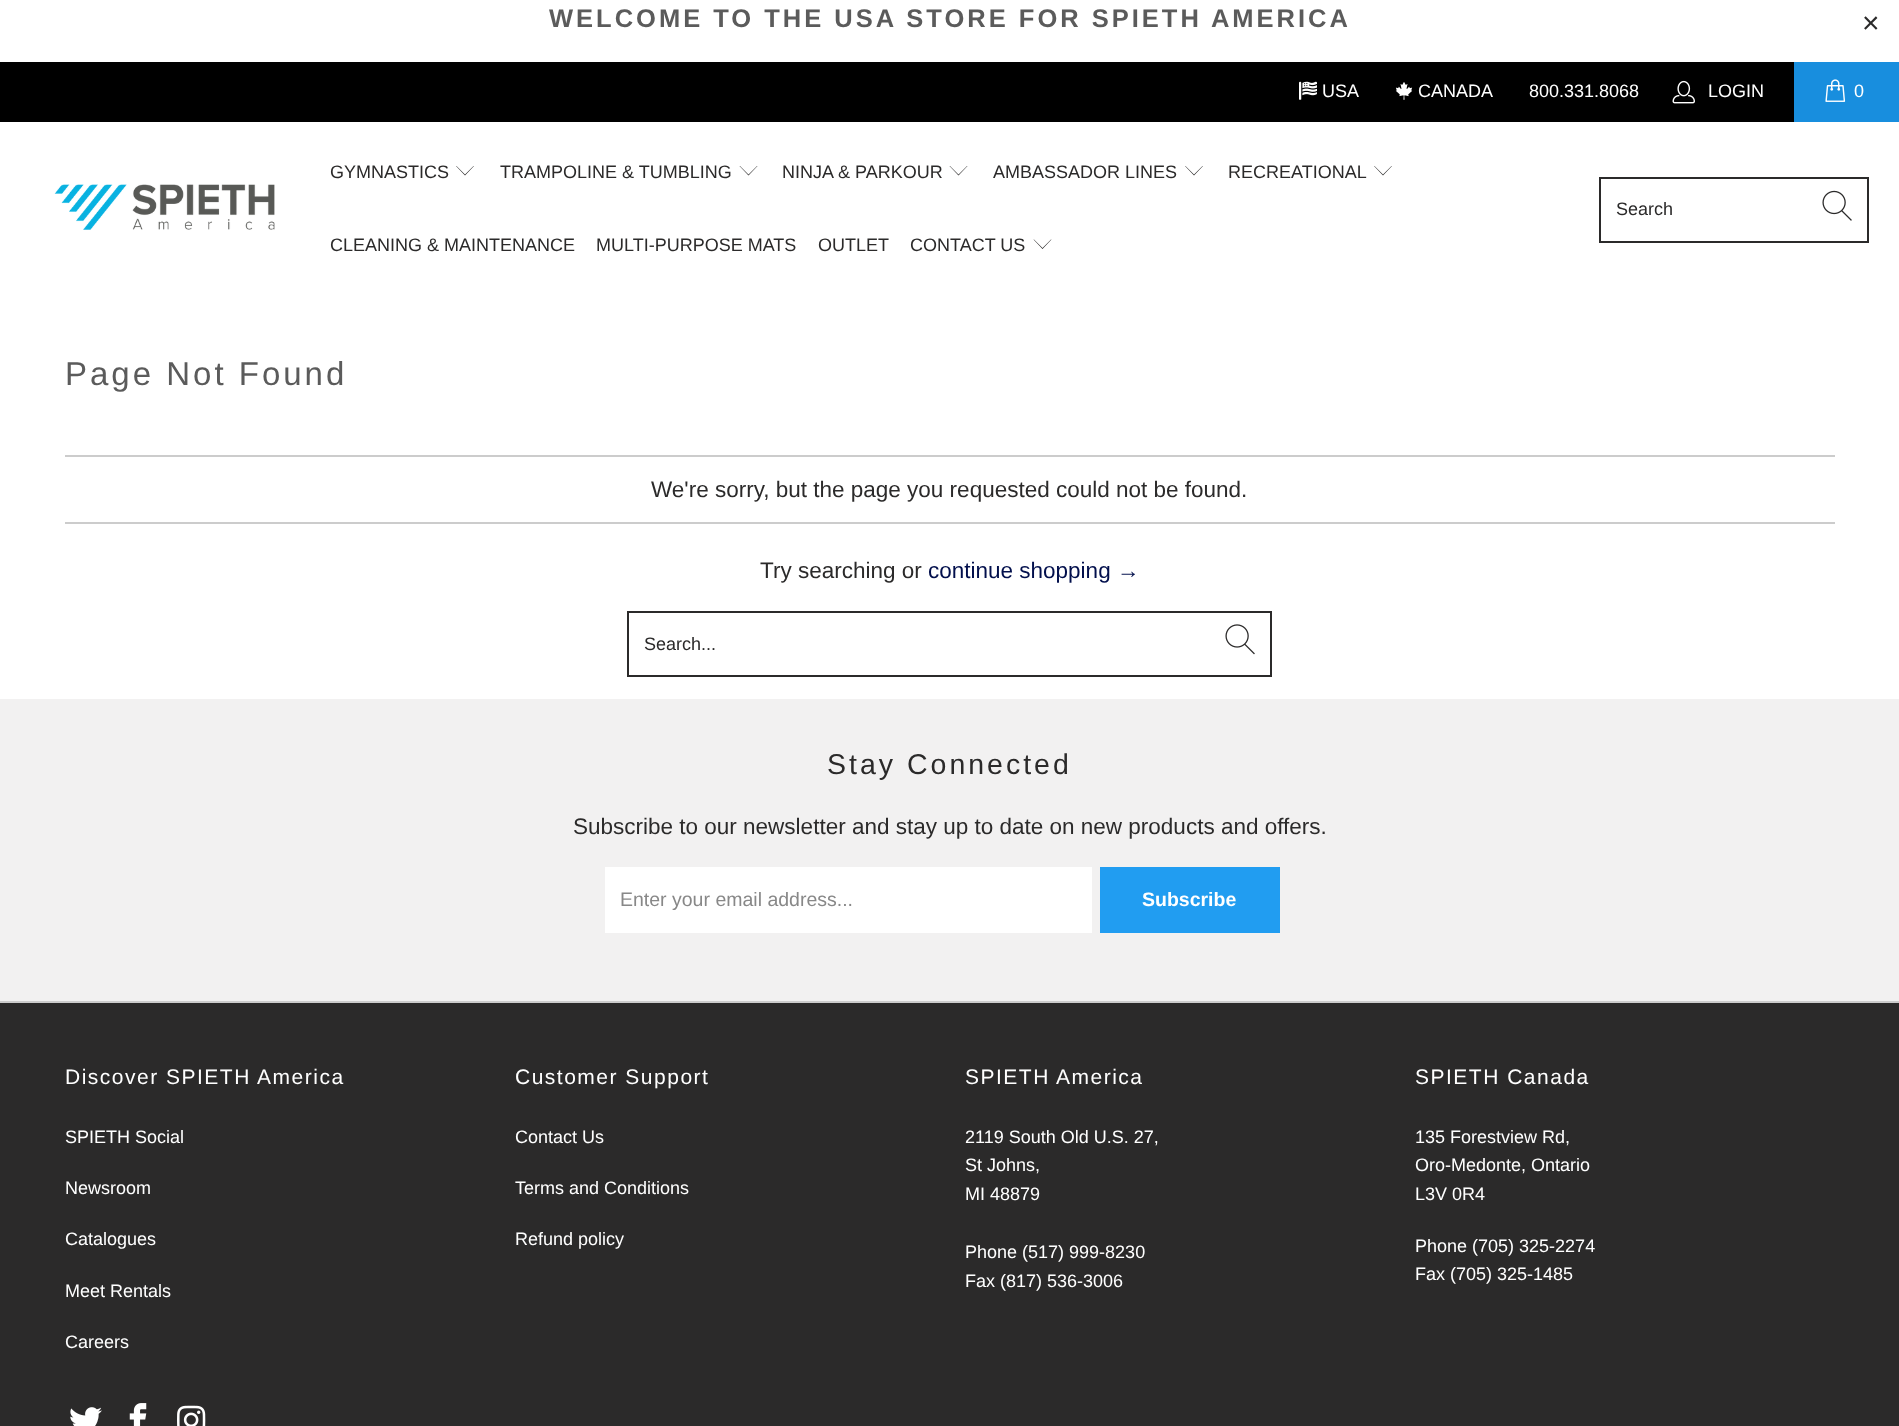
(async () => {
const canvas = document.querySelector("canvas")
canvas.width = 1899
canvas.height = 1426
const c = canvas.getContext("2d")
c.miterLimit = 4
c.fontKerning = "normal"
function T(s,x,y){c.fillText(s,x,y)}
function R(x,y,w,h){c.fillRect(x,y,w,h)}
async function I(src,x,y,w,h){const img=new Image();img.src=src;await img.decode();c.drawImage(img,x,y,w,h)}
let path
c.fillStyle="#fff"
R(0,0,1899,1426)
c.letterSpacing="3px"
c.font="bold 25.5px Liberation Sans"
c.fillStyle="#5b5b5b"
T("WELCOME TO THE USA STORE FOR SPIETH AMERICA",549,27)
c.font="30px Liberation Sans"
c.fillStyle="#2b2a2a"
T("×",1862,33)
c.fillStyle="#000"
R(0,62,1794,60)
await I("1.png",1299,81,18,19)
c.letterSpacing="0px"
c.font="18px Liberation Sans"
c.fillStyle="#fff"
T("USA",1322,97)
await I("2.png",1395,82,18,18)
T("CANADA",1418,97)
T("800.331.8068",1529,97)
await I("3.png",1672,80,23,24)
T("LOGIN",1708,97)
c.fillStyle="#188ede"
R(1794,62,105,60)
await I("4.png",1825,79,21,23)
c.fillStyle="#fff"
T("0",1854,97)
await I("5.png",54,184,221,46)
c.fillStyle="#2b2a2a"
T("GYMNASTICS",330,178)
path = new Path2D("M465 175.5l-9-9.5h.5l8.5 8.5l8.5-8.5h.5z")
c.fill(path)
T("TRAMPOLINE & TUMBLING",500,178)
path = new Path2D("M748.5 175.5l-9-9.5h.5l8.5 8.5l8.5-8.5h.5z")
c.fill(path)
T("NINJA & PARKOUR",782,178)
path = new Path2D("M958.5 175.5l-9-9.5h.5l8.5 8.5l8.5-8.5h.5z")
c.fill(path)
T("AMBASSADOR LINES",993,178)
path = new Path2D("M1194 175.5l-9-9.5h.5l8.5 8.5l8.5-8.5h.5z")
c.fill(path)
T("RECREATIONAL",1228,178)
path = new Path2D("M1383 175.5l-9-9.5h.5l8.5 8.5l8.5-8.5h.5z")
c.fill(path)
T("CLEANING & MAINTENANCE",330,251)
T("MULTI-PURPOSE MATS",596,251)
T("OUTLET",818,251)
T("CONTACT US",910,251)
path = new Path2D("M1042.5 249l-9-9.5h.5l8.5 8.5l8.5-8.5h.5z")
c.fill(path)
c.strokeStyle="#2b2a2a"
c.lineWidth=2
c.strokeRect(1600,178,268,64)
T("Search",1616,215)
await I("6.png",1822,190,30,31)
c.letterSpacing="3px"
c.font="33px Liberation Sans"
c.fillStyle="#5b5b5b"
T("Page Not Found",65,385)
c.fillStyle="#ccc"
R(65,455,1770,2)
R(65,522,1770,2)
c.letterSpacing="0px"
c.font="22.5px Liberation Sans"
c.fillStyle="#2b2a2a"
T("We're sorry, but the page you requested could not be found.",651,497)
T("Try searching or",760,578)
c.fillStyle="#020f4c"
T("continue shopping →",928,578)
c.strokeRect(628,612,643,64)
c.font="18px Liberation Sans"
c.fillStyle="#2b2a2a"
T("Search...",644,650)
await I("7.png",1225,624,30,31)
c.fillStyle="#f2f1f1"
R(0,699,1899,302)
c.letterSpacing="3px"
c.font="28.5px Liberation Sans"
c.fillStyle="#2b2a2a"
T("Stay Connected",827,774)
c.letterSpacing="0px"
c.font="22.5px Liberation Sans"
T("Subscribe to our newsletter and stay up to date on new products and offers.",573,834)
c.fillStyle="#fff"
R(605,867,487,66)
c.font="19.5px Liberation Sans"
c.fillStyle="#888"
T("Enter your email address...",620,906)
c.fillStyle="#219df1"
R(1100,867,180,66)
c.font="bold 19.5px Liberation Sans"
c.fillStyle="#fff"
T("Subscribe",1142,906)
c.fillStyle="#2b2a2a"
R(0,1003,1899,423)
c.fillStyle="#ccc"
R(0,1001,1899,2)
c.letterSpacing="1.5px"
c.font="21px Liberation Sans"
c.fillStyle="#fff"
T("Discover SPIETH America",65,1084)
c.letterSpacing="0px"
c.font="18px Liberation Sans"
T("SPIETH Social",65,1143)
T("Newsroom",65,1194)
T("Catalogues",65,1245)
T("Meet Rentals",65,1297)
T("Careers",65,1348)
await I("8.png",70,1407,32,19)
await I("9.png",129,1403,18,23)
await I("10.png",177,1405,29,21)
c.letterSpacing="1.5px"
c.font="21px Liberation Sans"
T("Customer Support",515,1084)
c.letterSpacing="0px"
c.font="18px Liberation Sans"
T("Contact Us",515,1143)
T("Terms and Conditions",515,1194)
T("Refund policy",515,1245)
c.letterSpacing="1.5px"
c.font="21px Liberation Sans"
T("SPIETH America",965,1084)
c.letterSpacing="0px"
c.font="18px Liberation Sans"
T("2119 South Old U.S. 27,",965,1143)
T("St Johns,",965,1171)
T("MI 48879",965,1200)
T("Phone (517) 999-8230",965,1258)
T("Fax (817) 536-3006",965,1287)
c.letterSpacing="1.5px"
c.font="21px Liberation Sans"
T("SPIETH Canada",1415,1084)
c.letterSpacing="0px"
c.font="18px Liberation Sans"
T("135 Forestview Rd,",1415,1143)
T("Oro-Medonte, Ontario",1415,1171)
T("L3V 0R4",1415,1200)
T("Phone (705) 325-2274",1415,1252)
T("Fax (705) 325-1485",1415,1280)
})()
